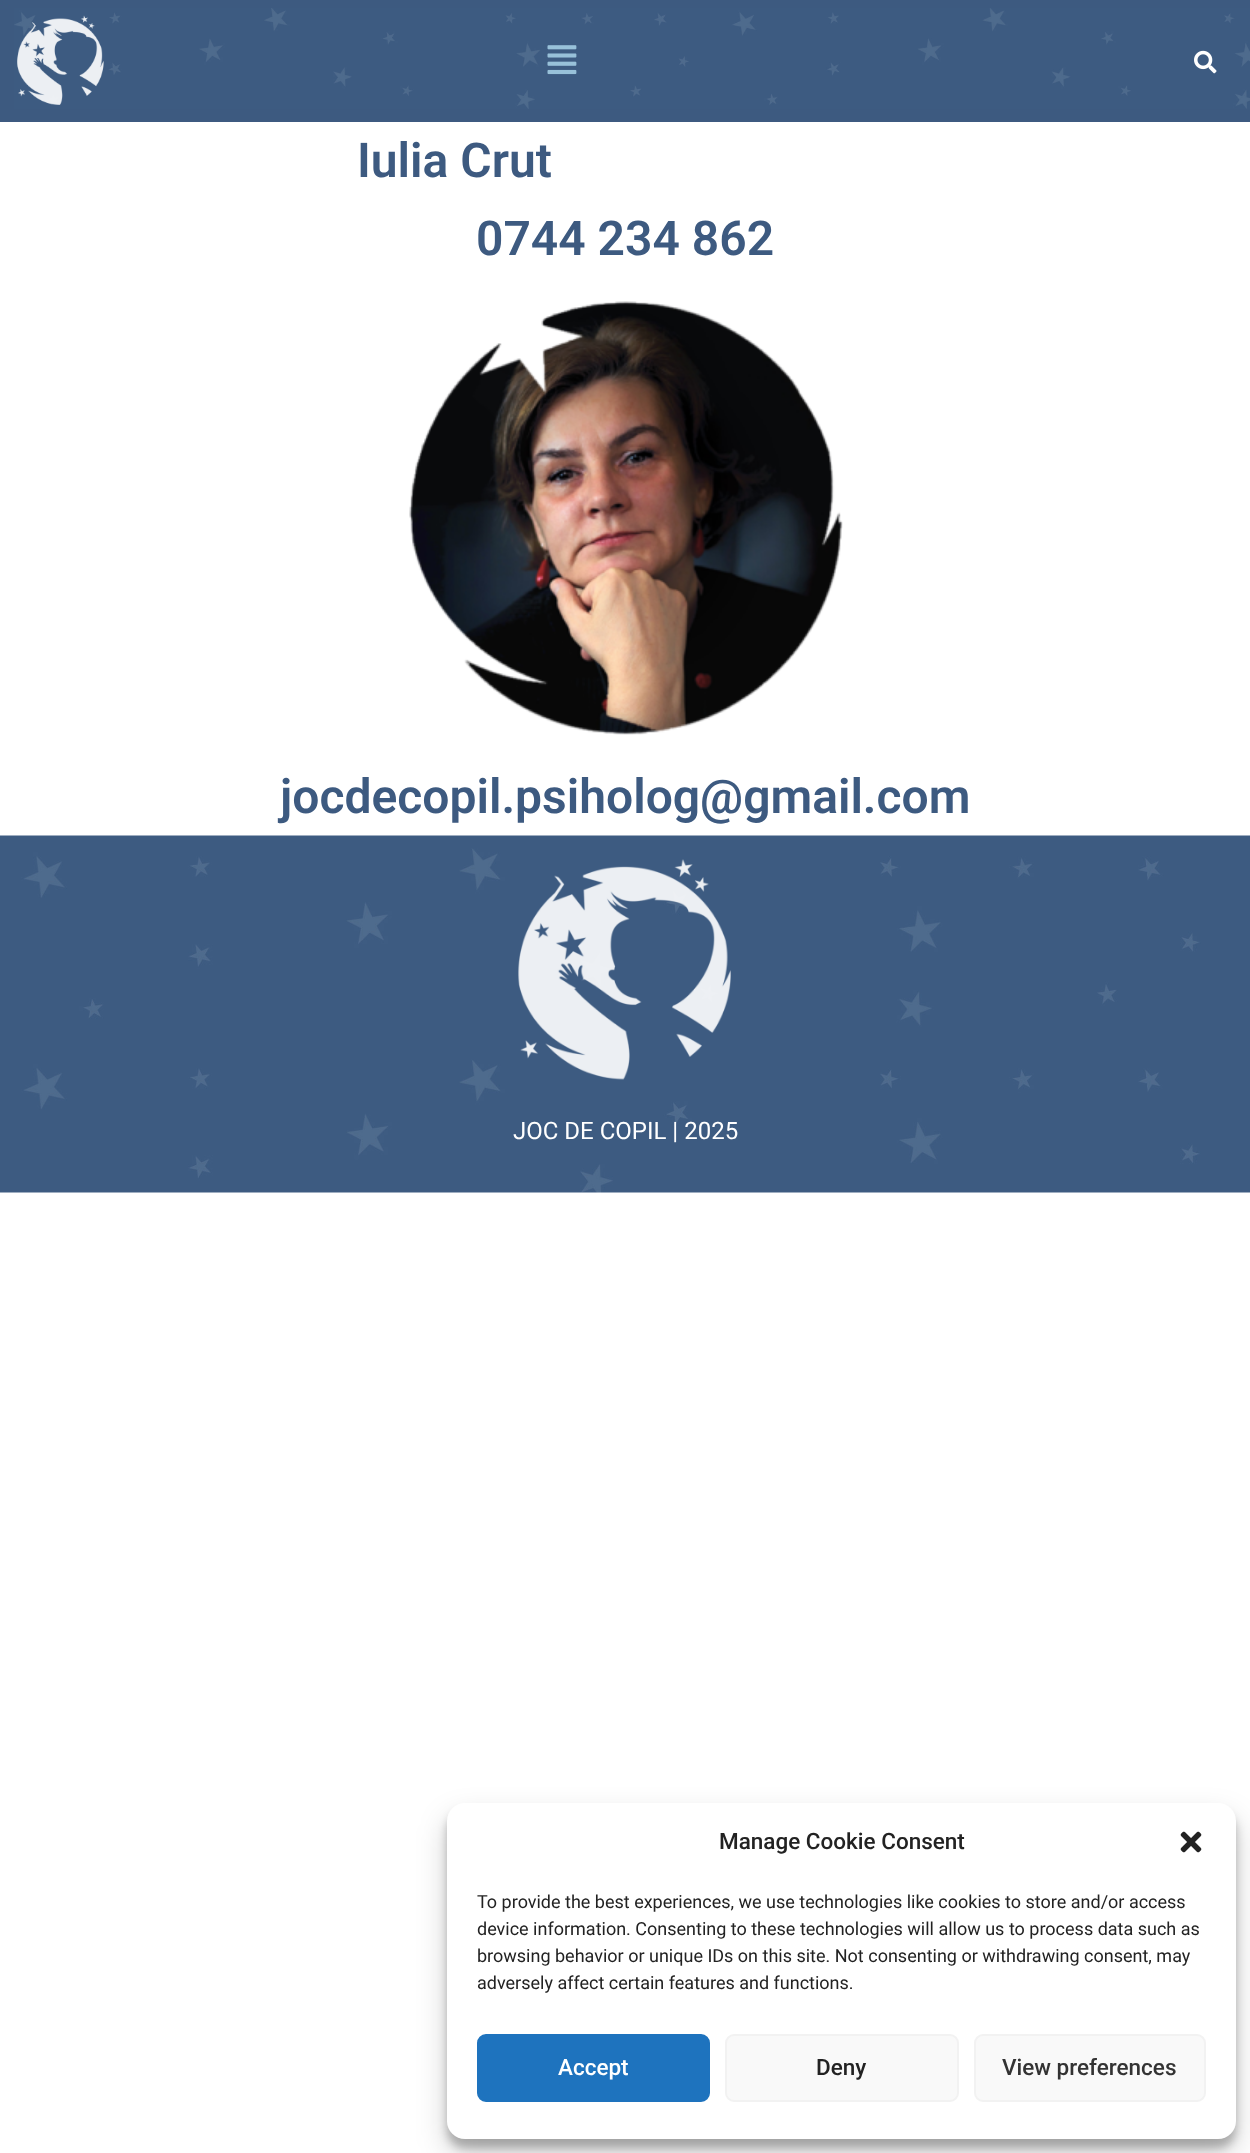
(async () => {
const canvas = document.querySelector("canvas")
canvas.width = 1250
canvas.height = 2153
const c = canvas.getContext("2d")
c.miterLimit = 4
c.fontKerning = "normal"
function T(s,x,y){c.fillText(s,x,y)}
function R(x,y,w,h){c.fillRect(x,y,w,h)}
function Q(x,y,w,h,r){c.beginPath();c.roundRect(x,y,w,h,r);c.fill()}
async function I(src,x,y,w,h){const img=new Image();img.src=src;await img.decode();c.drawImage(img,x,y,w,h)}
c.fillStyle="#fff"
R(0,0,1250,2153)
c.fillStyle="#3d5a80"
R(0,0,1250,122)
await I("1.png",14,8,1236,101)
await I("2.png",17,15,87,90)
await I("3.png",547,45,30,30)
await I("4.png",1194,50,23,24)
c.font="600 48px Roboto"
T("Iulia Crut",357,177)
T("0744 234 862",476,255)
await I("5.png",409,301,434,434)
T("jocdecopil.psiholog@gmail.com",280,813)
await I("6.png",0,835,1250,358)
await I("7.png",518,859,213,221)
c.font="24px Roboto"
c.fillStyle="#fff"
T("JOC DE COPIL | 2025",513,1139)
c.fillStyle="#0000003b"
c.filter="blur(4.5px)"
c.beginPath()
c.roundRect(447,1812,789,336,18)
c.fill()
c.filter="none"
c.fillStyle="#00000030"
c.filter="blur(15px)"
c.beginPath()
c.roundRect(447,1818,789,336,18)
c.fill()
c.filter="none"
c.fillStyle="#fff"
Q(447,1803,789,336,18)
c.font="500 22.5px Roboto"
c.fillStyle="#222"
T("Manage Cookie Consent",719,1849)
await I("8.png",1180,1831,22,22)
c.font="18px Roboto"
T("To provide the best experiences, we use technologies like cookies to store and/or access",477,1908)
T("device information. Consenting to these technologies will allow us to process data such as",477,1935)
T("browsing behavior or unique IDs on this site. Not consenting or withdrawing consent, may",477,1962)
T("adversely affect certain features and functions.",477,1989)
c.fillStyle="#1e73be"
c.beginPath()
c.roundRect(478,2035,231,66,8)
c.fill()
c.strokeStyle="#1e73be"
c.lineWidth=2
c.stroke()
c.font="500 22.5px Roboto"
c.fillStyle="#fff"
T("Accept",558,2075)
c.fillStyle="#f9f9f9"
c.beginPath()
c.roundRect(726,2035,232,66,8)
c.fill()
c.strokeStyle="#f2f2f2"
c.stroke()
c.fillStyle="#222"
T("Deny",816,2075)
c.fillStyle="#f9f9f9"
c.beginPath()
c.roundRect(975,2035,230,66,8)
c.fill()
c.stroke()
c.fillStyle="#333"
T("View preferences",1002,2075)
})()
